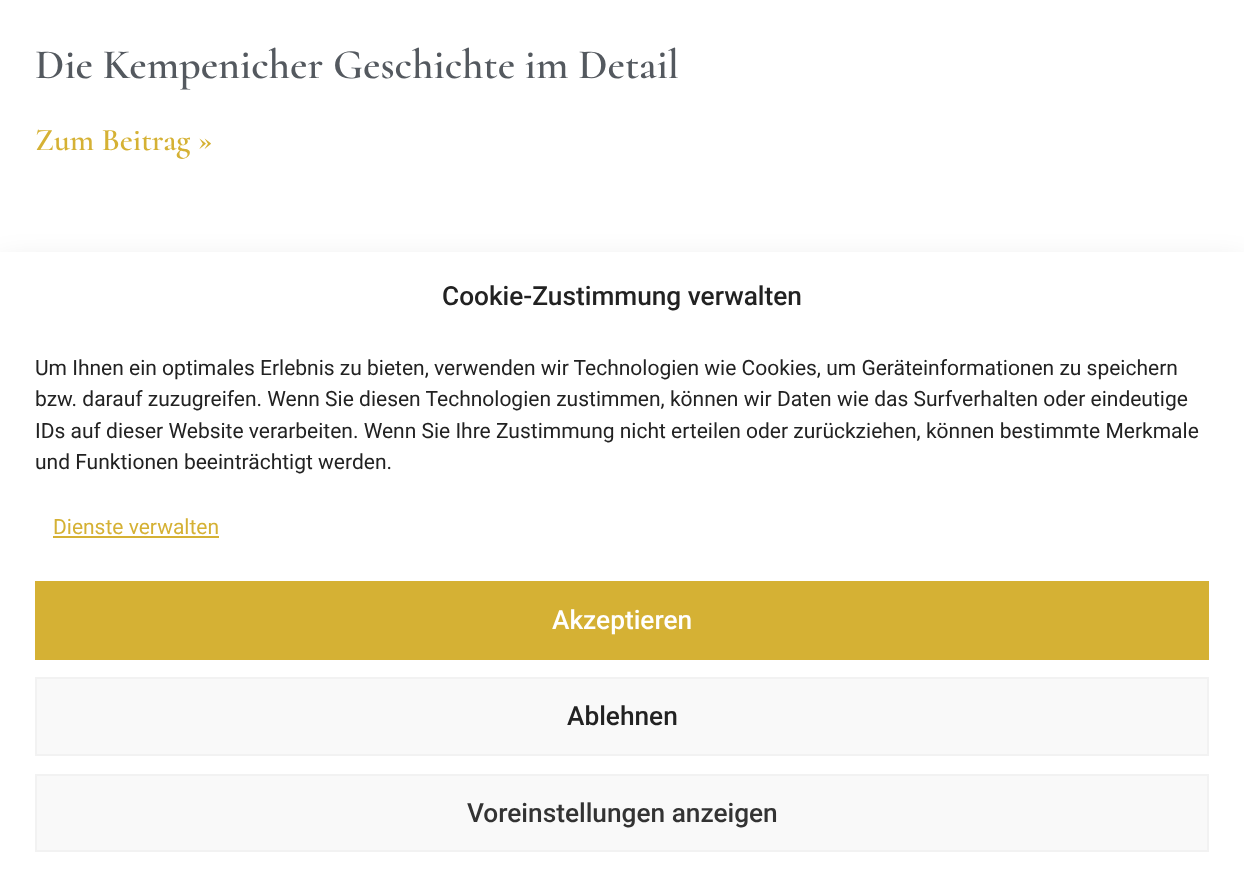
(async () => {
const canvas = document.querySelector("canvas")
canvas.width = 1244
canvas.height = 896
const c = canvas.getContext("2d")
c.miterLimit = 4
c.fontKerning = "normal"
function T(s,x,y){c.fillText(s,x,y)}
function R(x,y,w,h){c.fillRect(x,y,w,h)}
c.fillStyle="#fff"
R(0,0,1244,896)
c.font="600 42px Cormorant"
c.fillStyle="#54595f"
T("Die Kempenicher Geschichte im Detail",35,78)
c.font="600 31.5px Cormorant"
c.fillStyle="#d5b134"
T("Zum Beitrag »",35,150)
c.fillStyle="#00000030"
c.filter="blur(17.5px)"
c.beginPath()
c.rect(0,270,1244,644)
c.fill()
c.filter="none"
c.fillStyle="#fff"
R(0,252,1244,644)
c.font="500 26.25px Roboto"
c.fillStyle="#222"
T("Cookie-Zustimmung verwalten",442,305)
c.font="21px Roboto"
T("Um Ihnen ein optimales Erlebnis zu bieten, verwenden wir Technologien wie Cookies, um Geräteinformationen zu speichern",35,375)
T("bzw. darauf zuzugreifen. Wenn Sie diesen Technologien zustimmen, können wir Daten wie das Surfverhalten oder eindeutige",35,406)
T("IDs auf dieser Website verarbeiten. Wenn Sie Ihre Zustimmung nicht erteilen oder zurückziehen, können bestimmte Merkmale",35,438)
T("und Funktionen beeinträchtigt werden.",35,469)
c.fillStyle="#d5b134"
T("Dienste verwalten",53,534)
R(53,536,166,2)
R(35,581,1174,79)
c.font="500 26.25px Roboto"
c.fillStyle="#fff"
T("Akzeptieren",552,629)
c.fillStyle="#f9f9f9"
c.beginPath()
c.rect(36,678,1172,77)
c.fill()
c.strokeStyle="#f2f2f2"
c.lineWidth=2
c.stroke()
c.fillStyle="#222"
T("Ablehnen",567,725)
c.fillStyle="#f9f9f9"
c.beginPath()
c.rect(36,775,1172,76)
c.fill()
c.stroke()
c.fillStyle="#333"
T("Voreinstellungen anzeigen",467,822)
})()
